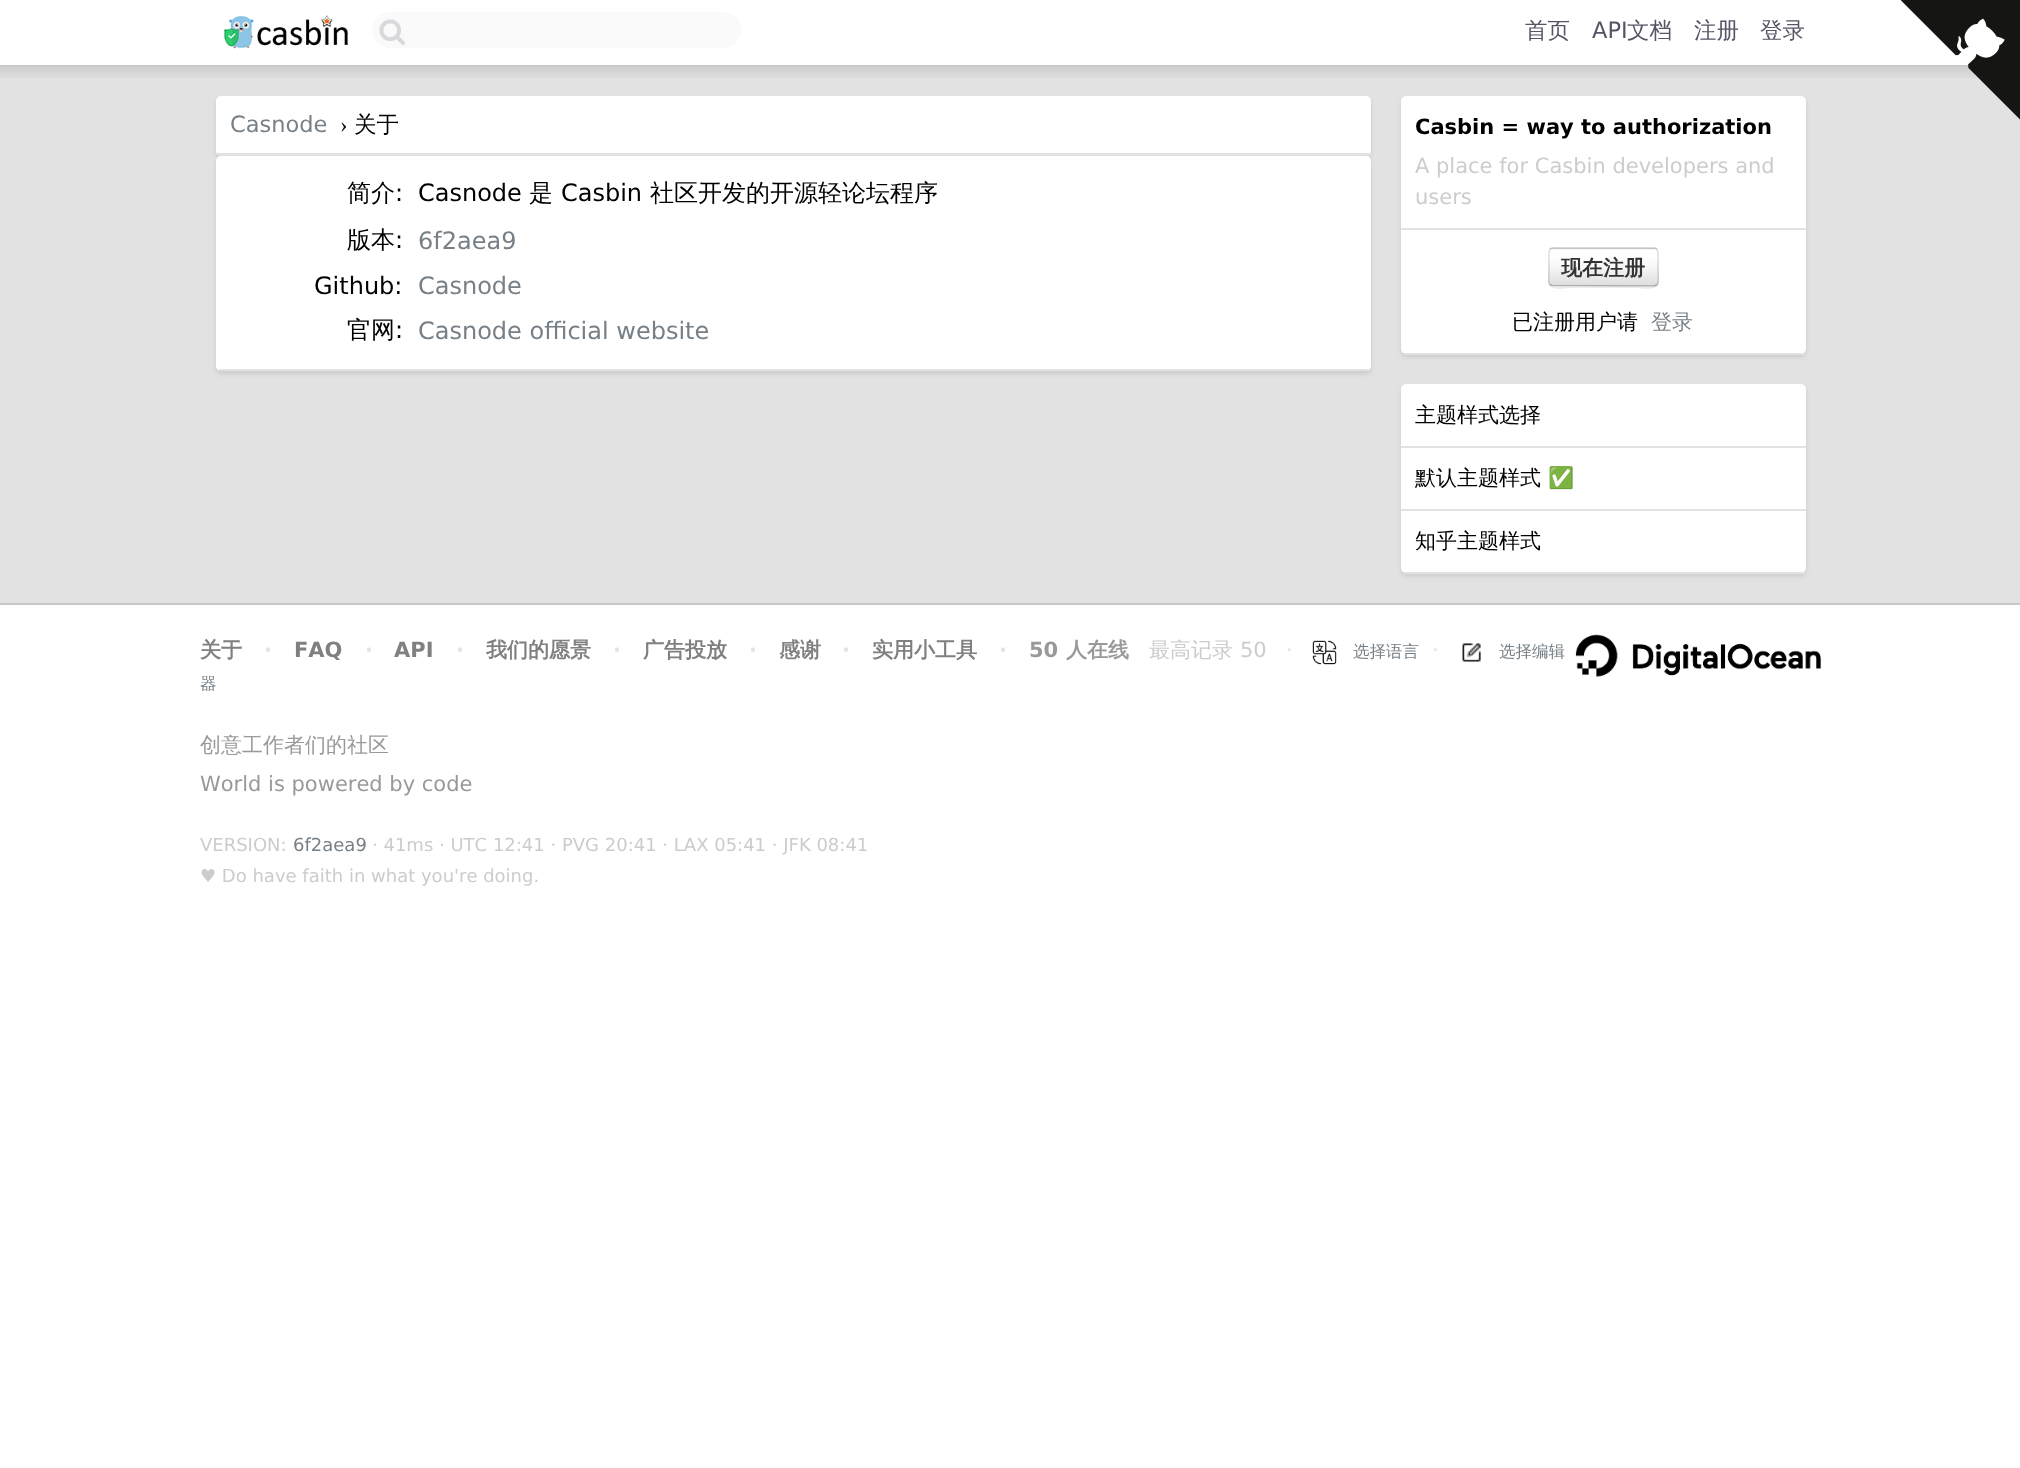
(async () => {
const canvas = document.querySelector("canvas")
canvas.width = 2020
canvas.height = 1468
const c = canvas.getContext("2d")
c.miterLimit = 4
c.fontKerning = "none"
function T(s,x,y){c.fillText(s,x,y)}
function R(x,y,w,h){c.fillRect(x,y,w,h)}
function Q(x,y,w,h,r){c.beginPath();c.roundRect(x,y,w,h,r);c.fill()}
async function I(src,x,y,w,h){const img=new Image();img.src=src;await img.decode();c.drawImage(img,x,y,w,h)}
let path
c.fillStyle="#fff"
R(0,0,2020,1468)
c.fillStyle="#c7c7c7"
R(0,65,1968,1)
await I("1.png",224,15,124,34)
c.fillStyle="#fafafa"
Q(372,12,369,36,18)
await I("2.png",379,19,26,26)
c.font="500 22.5px WenQuanYi Zen Hei"
c.fillStyle="#556"
T("首页",1525,38)
c.font="22.5px DejaVu Sans"
T("API",1592,38)
c.font="500 22.5px WenQuanYi Zen Hei"
T("文档",1627,38)
T("注册",1694,38)
T("登录",1760,38)
c.fillStyle="#e2e2e2"
R(0,66,2020,537)
await I("3.png",0,66,1979,12)
await I("4.png",1901,0,119,120)
c.fillStyle="#0000001a"
c.filter="blur(2px)"
c.beginPath()
c.roundRect(216,99,1155,60,5)
c.fill()
c.filter="none"
c.fillStyle="#fff"
Q(216,96,1155,60,5)
c.fillStyle="#e2e2e2"
R(219,155,1151,2)
c.fillStyle="#0000001a"
c.filter="blur(2px)"
c.beginPath()
c.roundRect(216,159,1155,215,5)
c.fill()
c.filter="none"
c.fillStyle="#e2e2e2"
R(216,153,1155,2)
c.font="22.5px DejaVu Sans"
c.fillStyle="#778087"
T("Casnode",230,132)
c.font="22.5px Liberation Serif"
c.fillStyle="#000"
T("›",340,132)
c.font="500 22.5px WenQuanYi Zen Hei"
T("关于",354,132)
c.fillStyle="#fff"
Q(216,156,1155,215,5)
c.fillStyle="#e2e2e2"
R(219,369,1151,2)
c.font="500 24px WenQuanYi Zen Hei"
c.fillStyle="#000"
T("简介",347,201)
c.font="24px DejaVu Sans"
T(":",395,201)
T("Casnode",418,201)
c.font="500 24px WenQuanYi Zen Hei"
T("是",529,201)
c.font="24px DejaVu Sans"
T("Casbin",561,201)
c.font="500 24px WenQuanYi Zen Hei"
T("社区开发的开源轻论坛程序",650,201)
T("版本",347,248)
c.font="24px DejaVu Sans"
T(":",395,248)
c.fillStyle="#778087"
T("6f2aea9",418,249)
c.fillStyle="#000"
T("Github:",314,294)
c.fillStyle="#778087"
T("Casnode",418,294)
c.font="500 24px WenQuanYi Zen Hei"
c.fillStyle="#000"
T("官网",347,338)
c.font="24px DejaVu Sans"
T(":",395,338)
c.fillStyle="#778087"
T("Casnode official website",418,339)
c.fillStyle="#0000001a"
c.filter="blur(2px)"
c.beginPath()
c.roundRect(1401,99,405,258,5)
c.fill()
c.filter="none"
c.fillStyle="#fff"
Q(1401,96,405,258,5)
c.fillStyle="#e2e2e2"
R(1404,353,401,2)
R(1401,228,405,2)
c.font="bold 21px DejaVu Sans"
c.fillStyle="#000"
T("Casbin = way to authorization",1415,134)
c.font="21px DejaVu Sans"
c.fillStyle="#ccc"
T("A place for Casbin developers and",1415,173)
T("users",1415,204)
c.fillStyle="#ececed"
path = new Path2D("M1548 282c0 10 17 6 22 6h67c5 0 22 4 22-6c0 2-2 4-5 4h-102c-2 0-4-2-4-4z")
c.fill(path)
c.fillStyle="#fff"
Q(1548,248,111,39,5)
await I("5.png",1548,247,111,40)
path = new Path2D("M1657 284.5l-2.5 1.5l-102.5-.5l-2-1")
c.strokeStyle="#50505a59"
c.lineWidth=1.5
c.stroke(path)
path = new Path2D("M1550 284.5c-2-1.5-1-5.5-1-7.5v-10c0-22.5-3.5-19 20.5-19h85c4.5 .5 3.5 6 3.5 9v15c0 2.5 1.5 10-1 12.5")
c.strokeStyle="#50505a33"
c.stroke(path)
c.font="bold 21px WenQuanYi Zen Hei"
c.fillStyle="#333"
T("现在注册",1561,275)
c.font="500 21px WenQuanYi Zen Hei"
c.fillStyle="#000"
T("已注册用户请",1512,329)
c.fillStyle="#778087"
T("登录",1651,329)
c.fillStyle="#0000001a"
c.filter="blur(2px)"
c.beginPath()
c.roundRect(1401,387,405,189,5)
c.fill()
c.filter="none"
c.fillStyle="#fff"
Q(1401,384,405,189,5)
c.fillStyle="#e2e2e2"
R(1404,572,401,2)
R(1401,446,405,2)
c.fillStyle="#000"
T("主题样式选择",1415,422)
c.fillStyle="#e2e2e2"
R(1401,509,405,2)
c.fillStyle="#000"
T("默认主题样式",1415,485)
c.font="21px Noto Color Emoji"
T("✅",1548,485)
c.font="500 21px WenQuanYi Zen Hei"
T("知乎主题样式",1415,548)
c.fillStyle="#c7c7c7"
R(0,603,2020,2)
c.font="bold 21px WenQuanYi Zen Hei"
c.fillStyle="#808080"
T("关于",200,657)
c.font="bold 21px DejaVu Sans"
c.fillStyle="#e2e2e2"
T("·",264,657)
c.fillStyle="#808080"
T("FAQ",294,657)
c.fillStyle="#e2e2e2"
T("·",365,657)
c.fillStyle="#808080"
T("API",394,657)
c.fillStyle="#e2e2e2"
T("·",456,657)
c.font="bold 21px WenQuanYi Zen Hei"
c.fillStyle="#808080"
T("我们的愿景",486,657)
c.font="bold 21px DejaVu Sans"
c.fillStyle="#e2e2e2"
T("·",613,657)
c.font="bold 21px WenQuanYi Zen Hei"
c.fillStyle="#808080"
T("广告投放",643,657)
c.font="bold 21px DejaVu Sans"
c.fillStyle="#e2e2e2"
T("·",749,657)
c.font="bold 21px WenQuanYi Zen Hei"
c.fillStyle="#808080"
T("感谢",779,657)
c.font="bold 21px DejaVu Sans"
c.fillStyle="#e2e2e2"
T("·",842,657)
c.font="bold 21px WenQuanYi Zen Hei"
c.fillStyle="#808080"
T("实用小工具",872,657)
c.font="bold 21px DejaVu Sans"
c.fillStyle="#e2e2e2"
T("·",999,657)
c.fillStyle="#999"
T("50",1029,657)
c.font="bold 21px WenQuanYi Zen Hei"
T("人在线",1066,657)
c.font="500 21px WenQuanYi Zen Hei"
c.fillStyle="#ccc"
T("最高记录",1149,657)
c.font="21px DejaVu Sans"
T("50",1240,657)
c.fillStyle="#e2e2e2"
T("·",1286,657)
await I("6.png",1312,640,25,25)
c.font="500 16.5px WenQuanYi Zen Hei"
c.fillStyle="#778087"
T("选择语言",1353,657)
c.font="21px DejaVu Sans"
c.fillStyle="#e2e2e2"
T("·",1432,657)
await I("7.png",1462,643,19,19)
c.font="500 16.5px WenQuanYi Zen Hei"
c.fillStyle="#778087"
T("选择编辑",1499,657)
await I("8.png",1575,634,246,43)
T("器",200,689)
c.font="500 21px WenQuanYi Zen Hei"
c.fillStyle="#999"
T("创意工作者们的社区",200,752)
c.font="21px DejaVu Sans"
T("World is powered by code",200,791)
c.font="18px DejaVu Sans"
c.fillStyle="#ccc"
T("VERSION:",200,851)
c.fillStyle="#778087"
T("6f2aea9",293,851)
c.fillStyle="#ccc"
T("· 41ms · UTC 12:41 · PVG 20:41 · LAX 05:41 · JFK 08:41",372,851)
T("♥ Do have faith in what you're doing.",200,882)
})()
